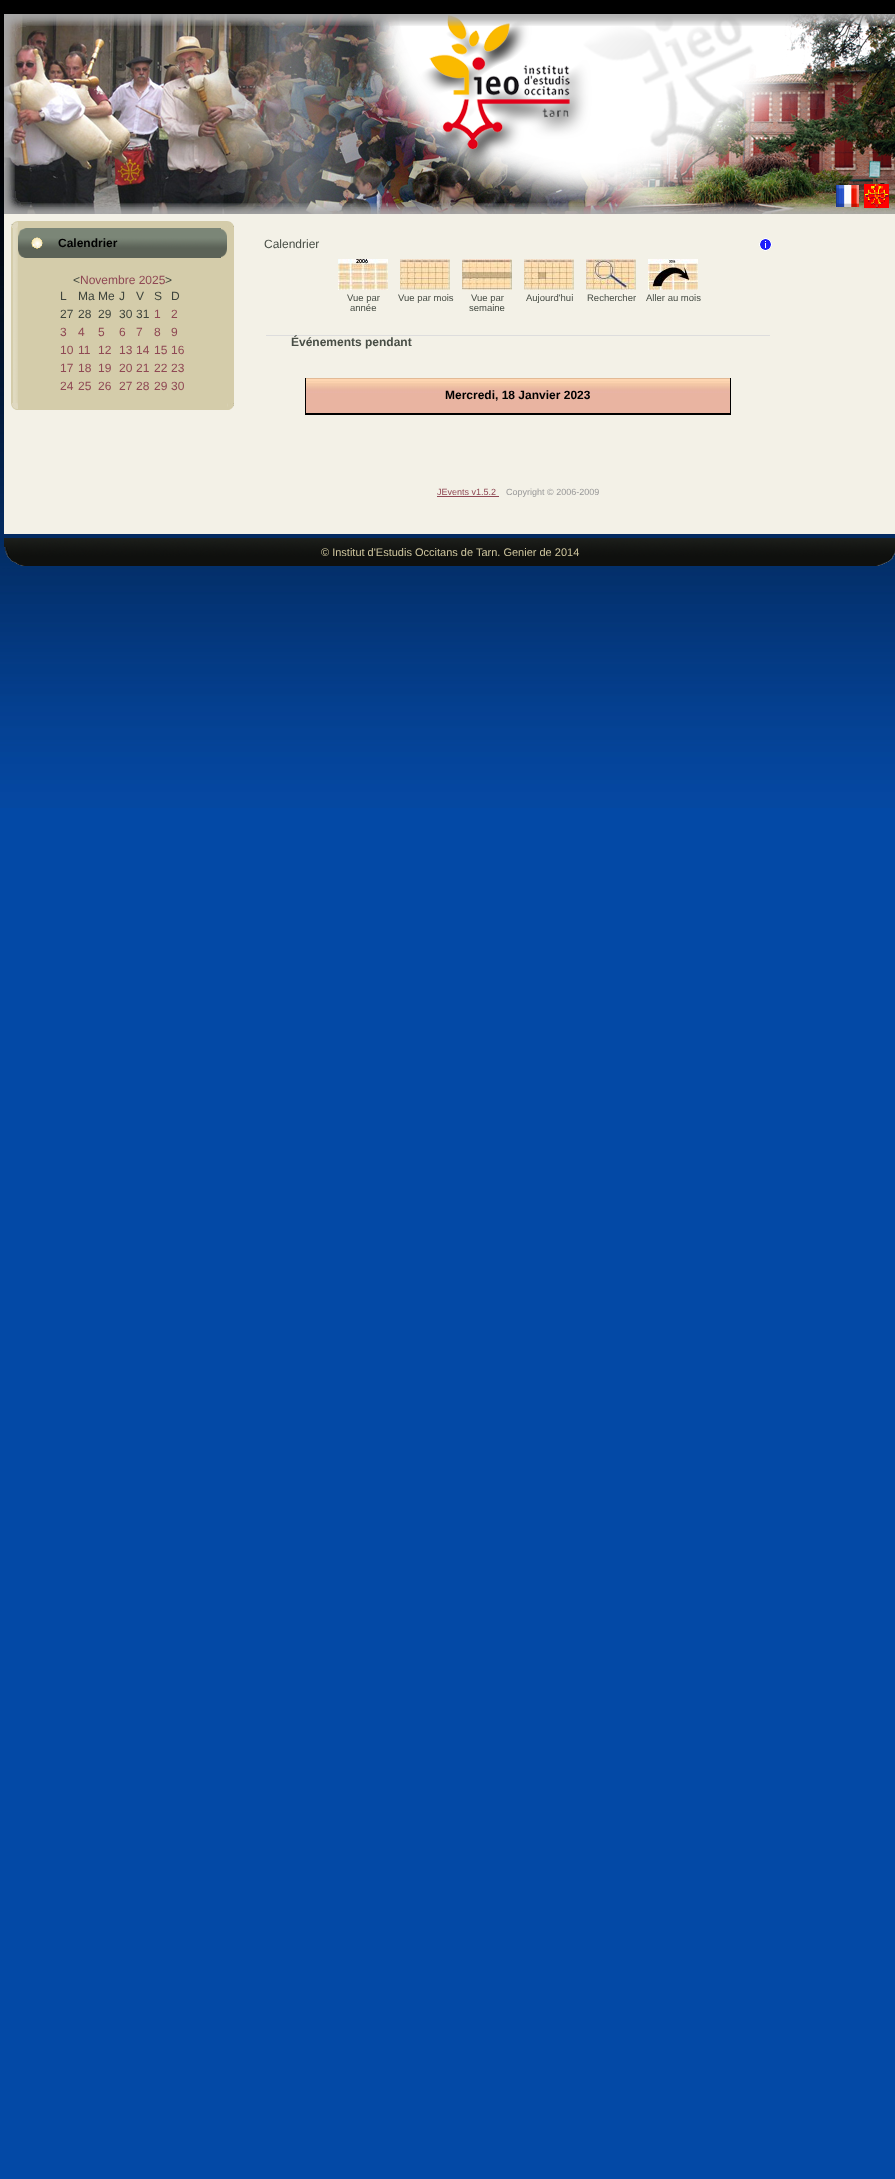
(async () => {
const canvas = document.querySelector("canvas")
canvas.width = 895
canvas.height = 2179
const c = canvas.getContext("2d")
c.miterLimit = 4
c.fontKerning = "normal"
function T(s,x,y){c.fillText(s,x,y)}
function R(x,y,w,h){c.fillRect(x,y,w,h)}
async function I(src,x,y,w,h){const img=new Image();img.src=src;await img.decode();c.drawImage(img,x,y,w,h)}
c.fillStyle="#0349a6"
R(0,0,895,2179)
await I("1.png",0,0,895,808)
c.fillStyle="#f3f1e7"
R(4,214,32,320)
R(36,214,859,320)
await I("2.png",4,14,891,200)
await I("3.png",836,185,23,22)
await I("4.png",864,184,25,24)
await I("5.png",11,221,7,7)
c.fillStyle="#d4ccaa"
R(18,221,209,7)
await I("6.png",227,221,7,7)
await I("7.png",11,228,7,175)
R(18,228,216,175)
await I("8.png",18,228,203,30)
await I("9.png",221,229,6,29)
await I("10.png",31,237,12,12)
c.font="bold 12px Liberation Sans"
c.fillStyle="#000"
T("Calendrier",58,247)
c.font="12px Liberation Sans"
c.fillStyle="#3e443c"
T("<",73,284)
c.fillStyle="#8f4854"
T("Novembre 2025",80,284)
c.fillStyle="#3e443c"
T(">",165,284)
T("L",60,300)
T("Ma",78,300)
T("Me",98,300)
T("J",119,300)
T("V",136,300)
T("S",154,300)
T("D",171,300)
T("27",60,318)
T("28",78,318)
T("29",98,318)
T("30",119,318)
T("31",136,318)
c.fillStyle="#8f4854"
T("1",154,318)
T("2",171,318)
T("3",60,336)
T("4",78,336)
T("5",98,336)
T("6",119,336)
T("7",136,336)
T("8",154,336)
T("9",171,336)
T("10",60,354)
T("11",78,354)
T("12",98,354)
T("13",119,354)
T("14",136,354)
T("15",154,354)
T("16",171,354)
T("17",60,372)
T("18",78,372)
T("19",98,372)
T("20",119,372)
T("21",136,372)
T("22",154,372)
T("23",171,372)
T("24",60,390)
T("25",78,390)
T("26",98,390)
T("27",119,390)
T("28",136,390)
T("29",154,390)
T("30",171,390)
await I("11.png",11,403,7,7)
c.fillStyle="#d4ccaa"
R(18,403,209,7)
await I("12.png",227,403,7,7)
c.fillStyle="#484e46"
T("Calendrier",264,248)
await I("13.png",759,238,13,13)
await I("14.png",338,259,50,31)
await I("15.png",400,259,50,31)
await I("16.png",462,259,50,31)
await I("17.png",524,259,50,31)
await I("18.png",586,259,50,31)
await I("19.png",648,259,50,31)
c.font="9.5px Liberation Sans"
T("Vue par",347,301)
T("année",350,311)
T("Vue par mois",398,301)
T("Vue par",471,301)
T("semaine",469,311)
T("Aujourd'hui",526,301)
T("Rechercher",587,301)
T("Aller au mois",646,301)
c.fillStyle="#ddd"
R(266,335,504,1)
c.font="bold 12px Liberation Sans"
c.fillStyle="#484e46"
T("Événements pendant",291,346)
c.fillStyle="#000"
R(730,378,1,37)
R(305,414,426,1)
R(305,378,1,37)
c.fillStyle="#e9b4a1"
R(306,393,424,20)
await I("20.png",306,378,424,15)
c.fillStyle="#000"
R(306,413,424,1)
T("Mercredi, 18 Janvier 2023",445,399)
c.font="9px Liberation Sans"
c.fillStyle="#8f4854"
T("JEvents v1.5.2",437,495)
R(437,496,62,1)
c.fillStyle="#999"
T("Copyright © 2006-2009",506,495)
await I("21.png",4,538,891,28)
c.font="11px Liberation Sans"
c.fillStyle="#cdc49d"
T("© Institut d'Estudis Occitans de Tarn. Genier de 2014",321,556)
})()
